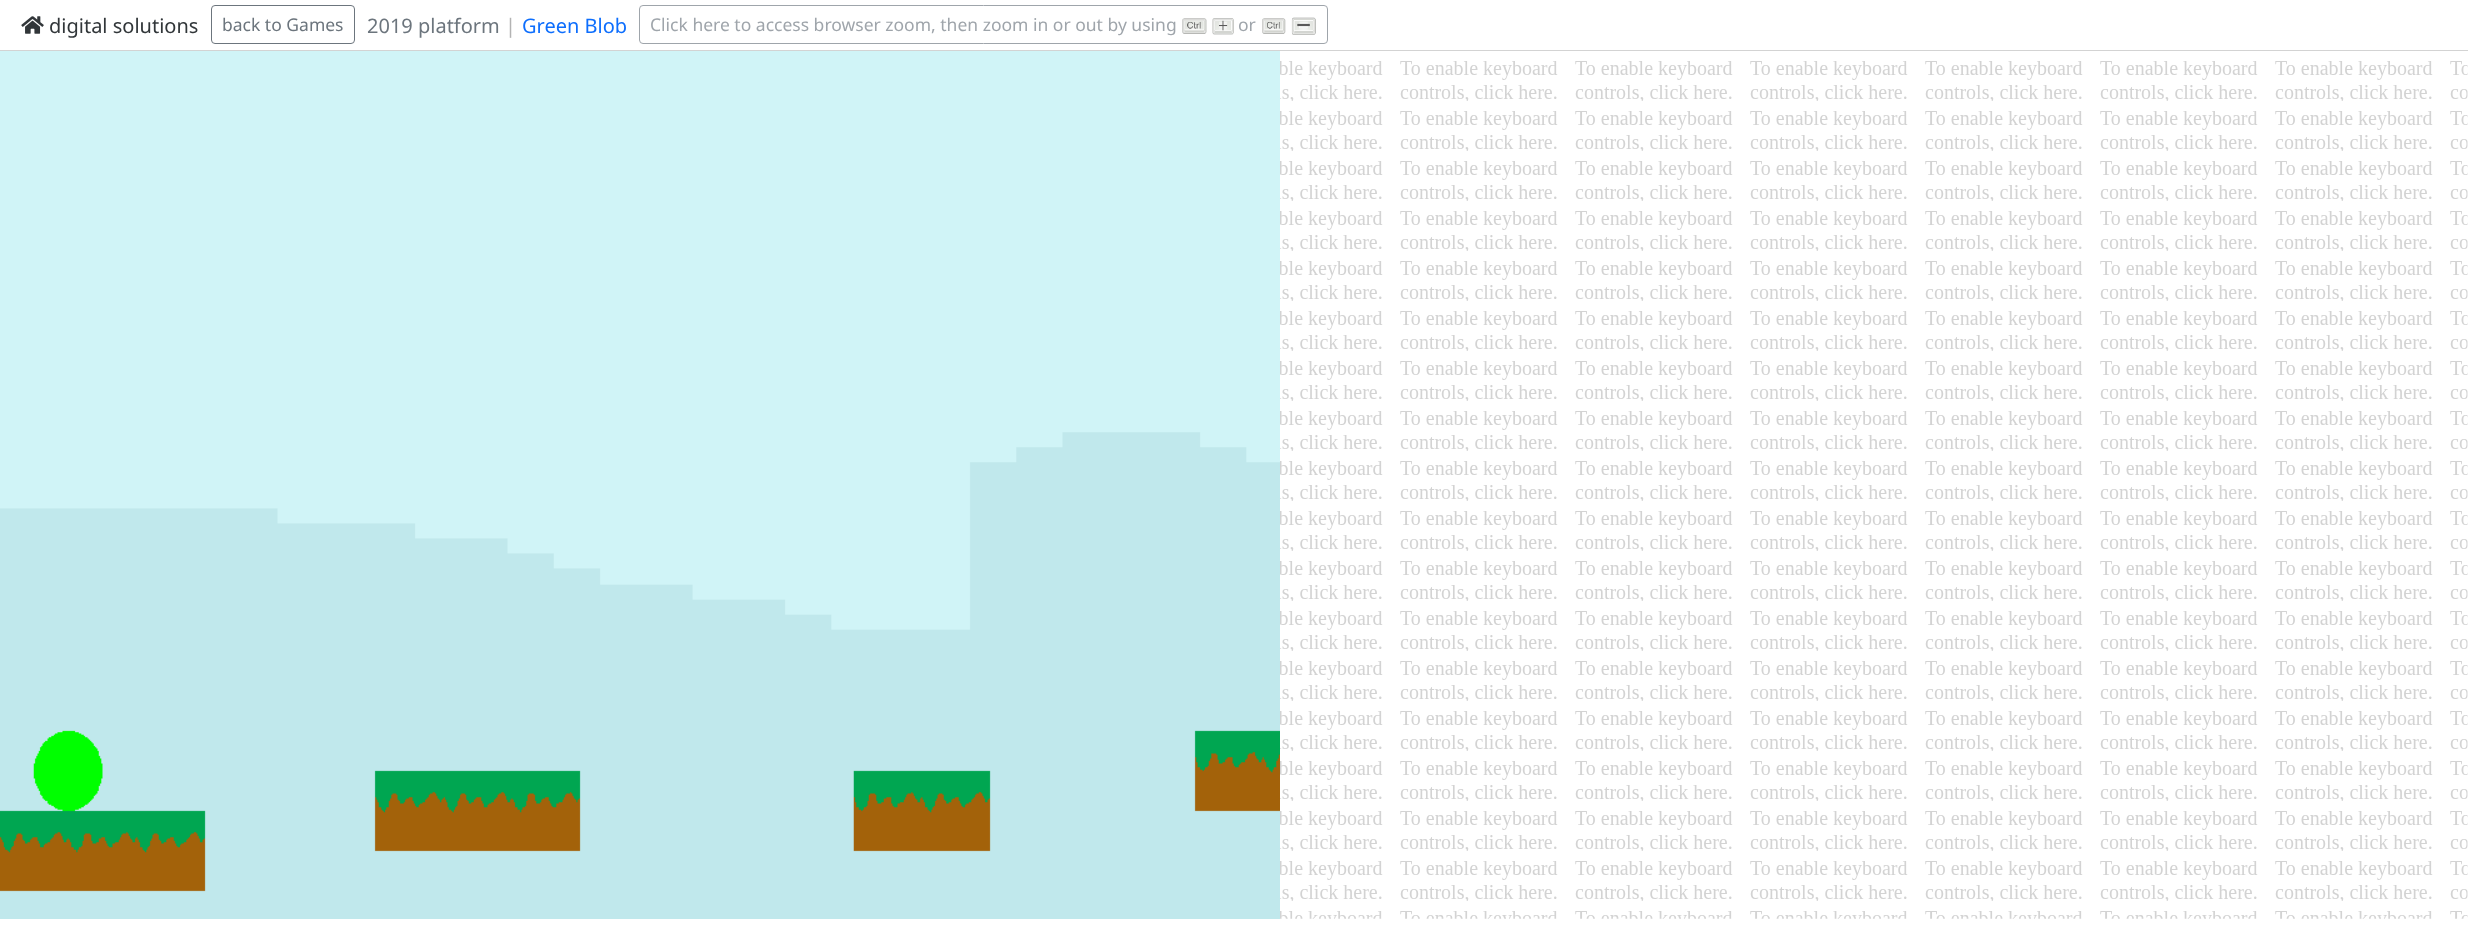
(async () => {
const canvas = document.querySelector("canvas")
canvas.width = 2482
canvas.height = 933
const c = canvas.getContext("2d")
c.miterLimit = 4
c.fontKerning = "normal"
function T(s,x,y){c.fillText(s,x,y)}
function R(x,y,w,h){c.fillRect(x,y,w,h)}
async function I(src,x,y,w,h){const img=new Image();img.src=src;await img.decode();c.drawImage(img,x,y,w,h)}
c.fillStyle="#fff"
R(0,0,2482,933)
await I("1.png",21,16,23,18)
c.font="20px Noto Sans"
c.fillStyle="#313639"
T("digital solutions",49,33)
c.beginPath()
c.roundRect(211.5,5.5,143,38,3.5)
c.strokeStyle="#6c757d"
c.stroke()
c.font="17.5px Noto Sans"
c.fillStyle="#6c757d"
T("back to Games",222,31)
c.font="20px Noto Sans"
T("2019 platform",367,33)
c.fillStyle="#b3b3b3"
T("|",505,33)
c.fillStyle="#0d6efd"
T("Green Blob",522,33)
c.beginPath()
c.roundRect(639.5,5.5,688,38,3.5)
c.strokeStyle="#9fa5ab"
c.stroke()
c.font="17.5px Noto Sans"
c.fillStyle="#9fa5ab"
T("Click here to access browser zoom, then zoom in or out by using",650,31)
await I("2.png",1182,18,25,16)
await I("3.png",1212,18,22,17)
T("or",1238,31)
await I("4.png",1262,18,24,16)
await I("5.png",1291,17,25,18)
await I("6.png",1280,61,1188,858)
c.fillStyle="#d3d3d3"
R(0,50,2468,1)
await I("7.png",0,51,1280,868)
})()
